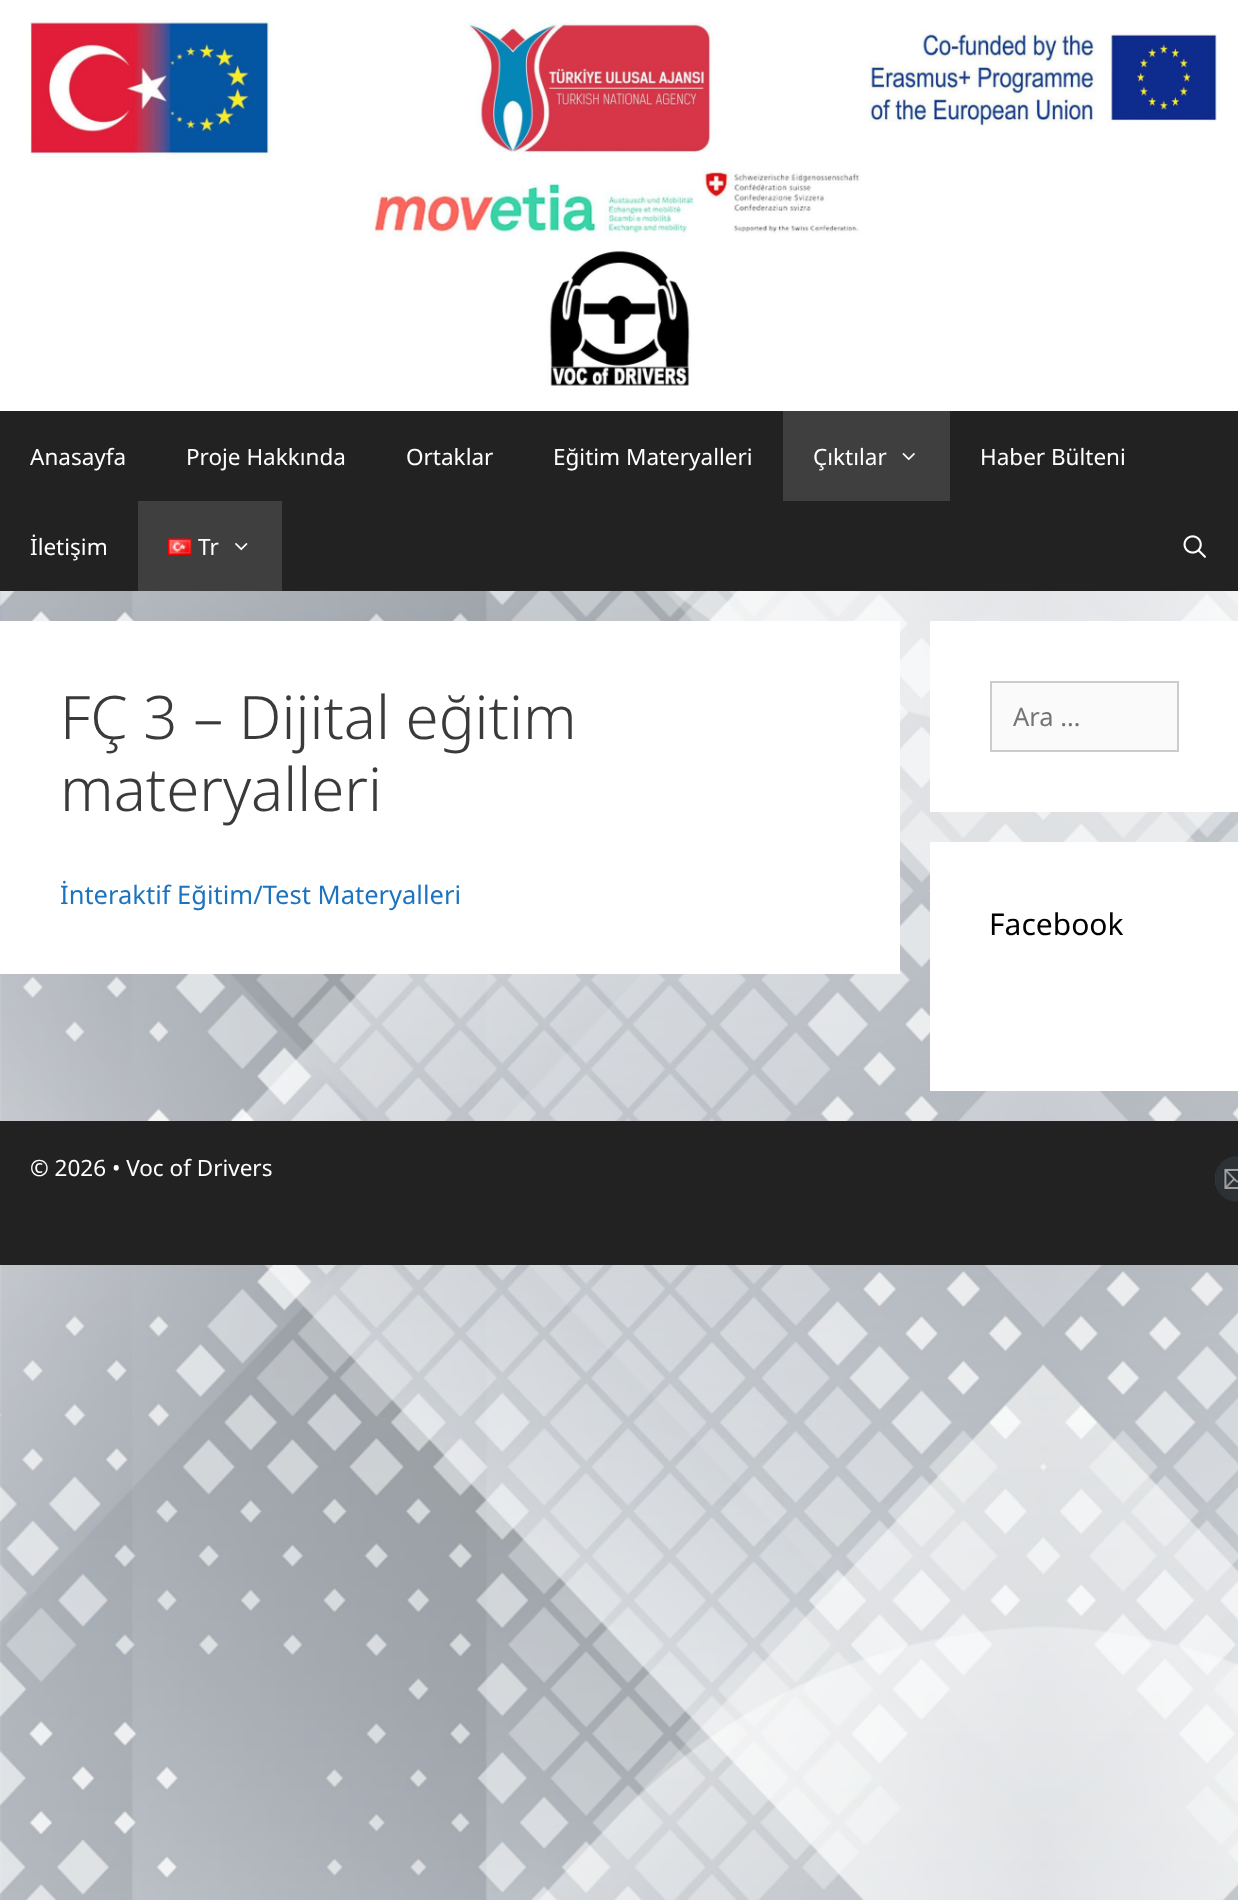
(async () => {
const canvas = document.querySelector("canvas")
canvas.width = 1238
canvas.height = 1900
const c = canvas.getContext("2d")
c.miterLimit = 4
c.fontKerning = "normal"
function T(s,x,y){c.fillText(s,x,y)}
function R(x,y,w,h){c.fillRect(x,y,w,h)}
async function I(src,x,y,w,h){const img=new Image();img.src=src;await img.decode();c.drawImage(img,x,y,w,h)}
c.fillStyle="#fff"
R(0,0,1238,1900)
await I("1.png",0,591,1238,1309)
await I("2.png",30,20,1187,366)
c.fillStyle="#222"
R(0,411,1238,180)
c.font="22.5px Noto Sans"
c.fillStyle="#fff"
T("Anasayfa",30,465)
T("Proje Hakkında",186,465)
T("Ortaklar",406,465)
T("Eğitim Materyalleri",553,465)
c.fillStyle="#3f3f3f"
R(783,411,167,90)
c.fillStyle="#fff"
T("Çıktılar",813,465)
await I("3.png",902,453,13,8)
T("Haber Bülteni",980,465)
T("İletişim",30,555)
c.fillStyle="#3f3f3f"
R(138,501,144,90)
await I("4.png",168,538,24,17)
c.fillStyle="#fff"
T("Tr",198,555)
await I("5.png",235,543,13,8)
await I("6.png",1183,535,23,23)
R(0,621,900,353)
c.font="300 60px Noto Sans"
c.fillStyle="#3a3a3a"
T("FÇ 3 – Dijital eğitim",60,739)
T("materyalleri",60,811)
c.font="25.5px Noto Sans"
c.fillStyle="#1e73be"
T("İnteraktif Eğitim/Test Materyalleri",60,904)
c.fillStyle="#fff"
R(930,621,308,191)
c.fillStyle="#fafafa"
c.beginPath()
c.rect(991,682,187,69)
c.fill()
c.strokeStyle="#ccc"
c.lineWidth=2
c.stroke()
c.fillStyle="#757575"
T("Ara …",1013,726)
c.fillStyle="#fff"
R(930,842,308,249)
c.font="30px Noto Sans"
c.fillStyle="#000"
T("Facebook",989,935)
c.fillStyle="#222"
R(0,1121,1238,144)
c.font="22.5px Noto Sans"
c.fillStyle="#fff"
T("© 2026 • Voc of Drivers",30,1176)
await I("7.png",1215,1156,23,46)
})()
